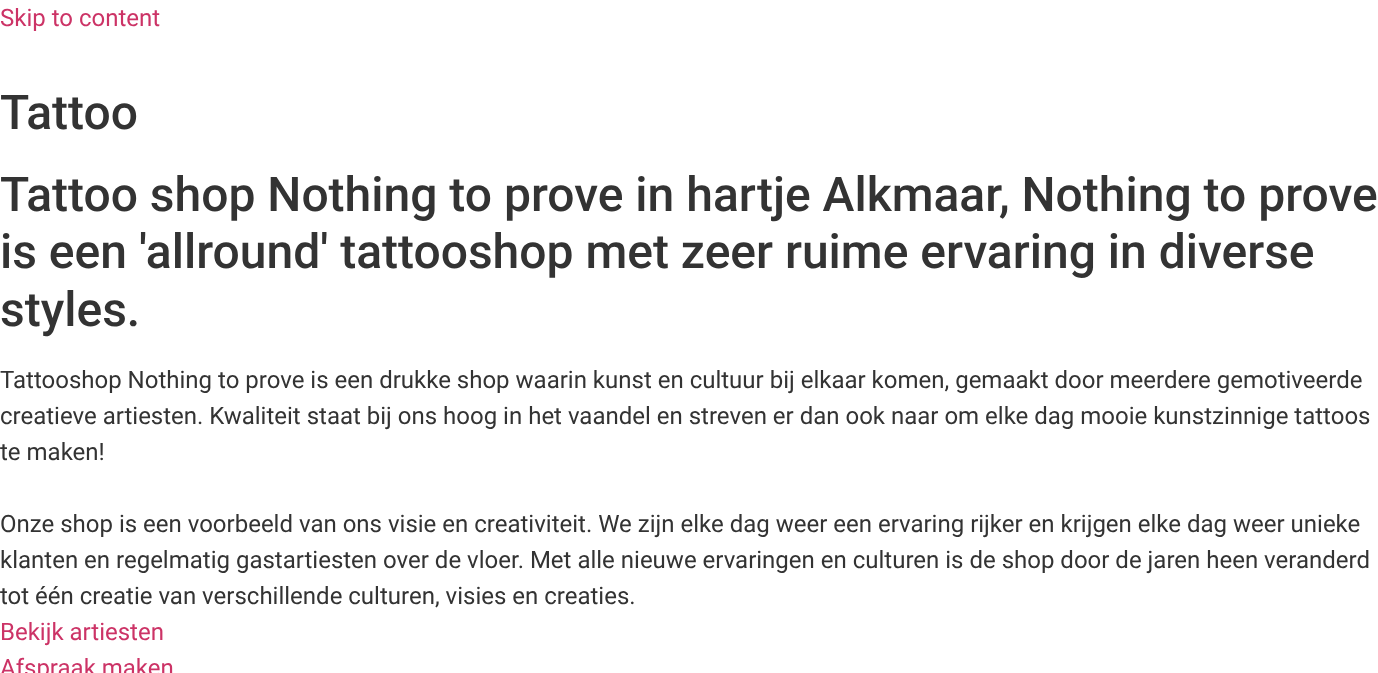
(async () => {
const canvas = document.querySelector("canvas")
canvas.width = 1378
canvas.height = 673
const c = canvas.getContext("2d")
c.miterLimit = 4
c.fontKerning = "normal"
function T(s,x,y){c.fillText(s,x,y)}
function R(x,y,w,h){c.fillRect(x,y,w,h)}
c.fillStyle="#fff"
R(0,0,1378,673)
c.font="24px Roboto"
c.fillStyle="#c36"
T("Skip to content",0,26)
c.font="500 48px Roboto"
c.fillStyle="#333"
T("Tattoo",0,129)
T("Tattoo shop Nothing to prove in hartje Alkmaar, Nothing to prove",0,211)
T("is een 'allround' tattooshop met zeer ruime ervaring in diverse",0,268)
T("styles.",0,326)
c.font="24px Roboto"
T("Tattooshop Nothing to prove is een drukke shop waarin kunst en cultuur bij elkaar komen, gemaakt door meerdere gemotiveerde",0,388)
T("creatieve artiesten. Kwaliteit staat bij ons hoog in het vaandel en streven er dan ook naar om elke dag mooie kunstzinnige tattoos",0,424)
T("te maken!",0,460)
T("Onze shop is een voorbeeld van ons visie en creativiteit. We zijn elke dag weer een ervaring rijker en krijgen elke dag weer unieke",0,532)
T("klanten en regelmatig gastartiesten over de vloer. Met alle nieuwe ervaringen en culturen is de shop door de jaren heen veranderd",0,568)
T("tot één creatie van verschillende culturen, visies en creaties.",0,604)
c.fillStyle="#c36"
T("Bekijk artiesten",0,640)
T("Afspraak maken",0,676)
})()
